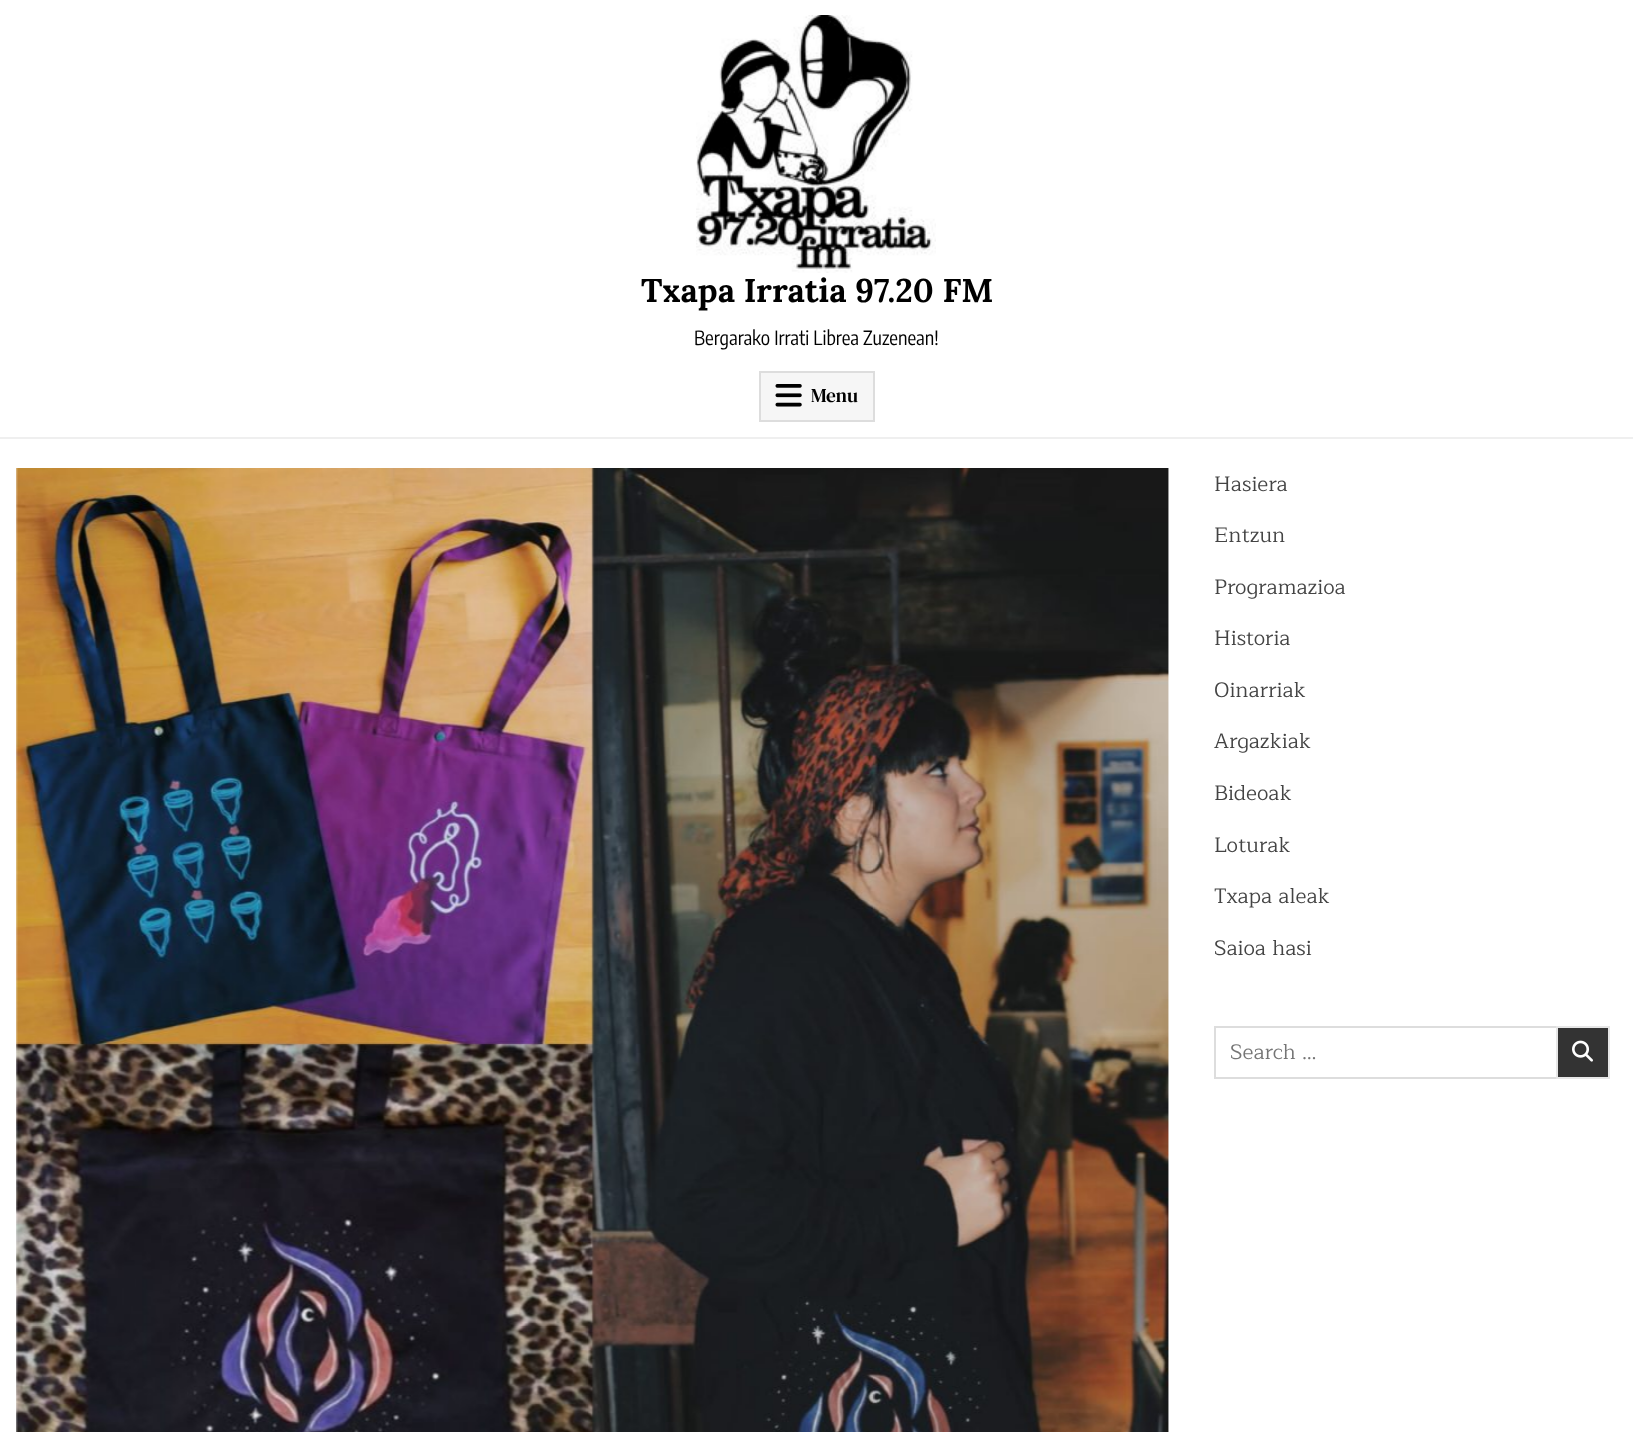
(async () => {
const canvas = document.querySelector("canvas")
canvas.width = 1633
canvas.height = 1432
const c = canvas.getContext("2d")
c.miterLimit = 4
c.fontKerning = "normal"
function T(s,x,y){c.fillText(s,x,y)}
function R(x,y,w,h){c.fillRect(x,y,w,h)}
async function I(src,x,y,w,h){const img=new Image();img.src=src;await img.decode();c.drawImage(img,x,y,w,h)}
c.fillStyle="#fff"
R(0,0,1633,1432)
c.fillStyle="#efefef"
R(0,437,1633,2)
await I("1.png",696,15,240,258)
c.font="bold 33px Lora"
c.fillStyle="#000"
T("Txapa Irratia 97.20 FM",641,302)
c.font="19.5px Encode Sans Condensed"
T("Bergarako Irrati Librea Zuzenean!",694,345)
c.fillStyle="#f6f6f6"
c.beginPath()
c.rect(760,372,114,49)
c.fill()
c.strokeStyle="#ddd"
c.lineWidth=2
c.stroke()
await I("2.png",775,384,27,23)
c.font="19.5px DM Serif Text"
c.fillStyle="#000"
T("Menu",811,402)
await I("3.png",16,468,1153,964)
c.font="21px Maitree"
c.fillStyle="#444"
T("Hasiera",1214,491)
T("Entzun",1214,542)
T("Programazioa",1214,594)
T("Historia",1214,645)
T("Oinarriak",1214,697)
T("Argazkiak",1214,748)
T("Bideoak",1214,800)
T("Loturak",1214,852)
T("Txapa aleak",1214,903)
T("Saioa hasi",1214,955)
c.strokeRect(1215,1027,394,51)
c.fillStyle="#757575"
T("Search …",1230,1059)
c.fillStyle="#333"
c.beginPath()
c.rect(1557,1027,52,51)
c.fill()
c.strokeStyle="#e6e6e6"
c.stroke()
await I("4.png",1572,1040,21,22)
})()
